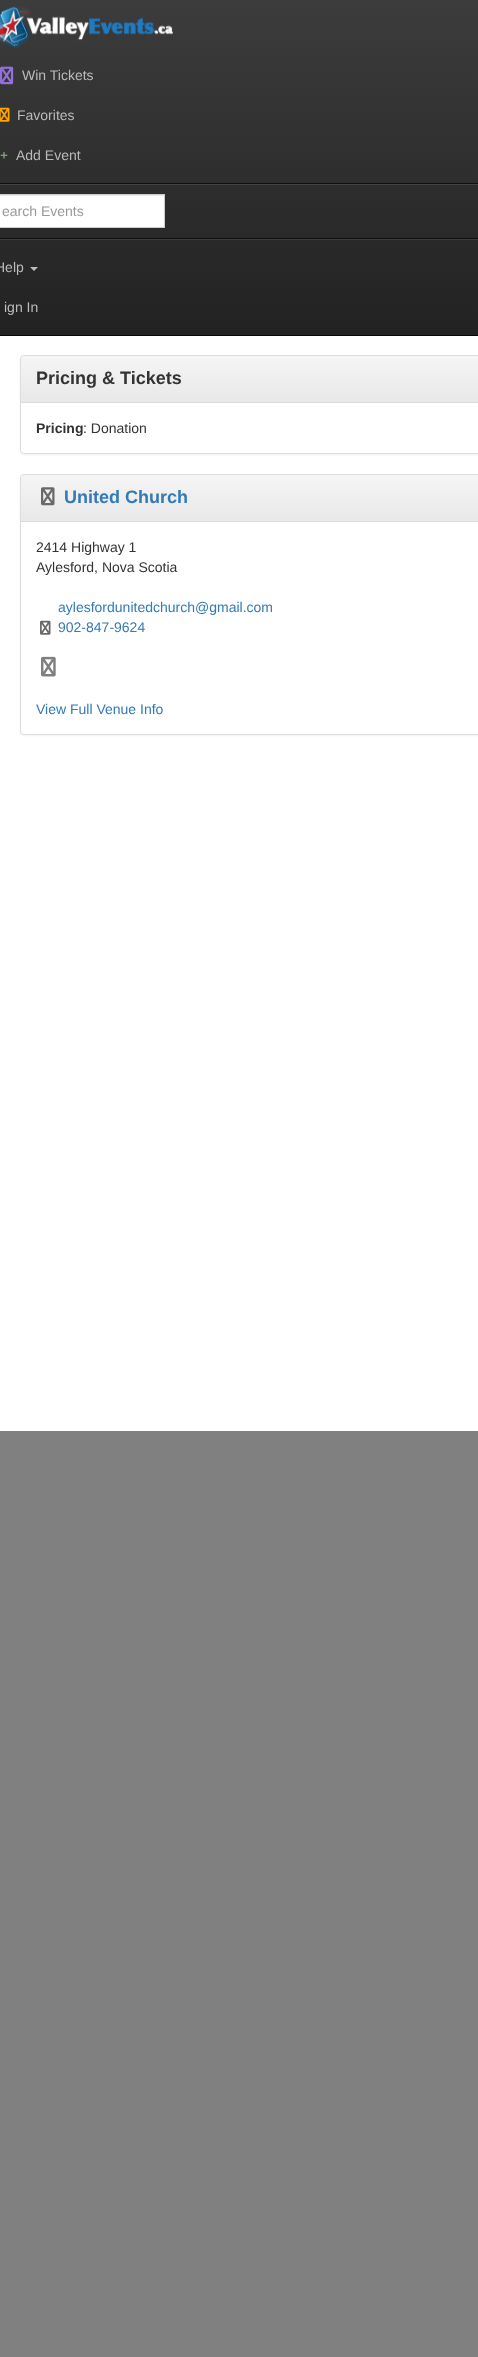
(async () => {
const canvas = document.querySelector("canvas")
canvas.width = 478
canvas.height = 2357
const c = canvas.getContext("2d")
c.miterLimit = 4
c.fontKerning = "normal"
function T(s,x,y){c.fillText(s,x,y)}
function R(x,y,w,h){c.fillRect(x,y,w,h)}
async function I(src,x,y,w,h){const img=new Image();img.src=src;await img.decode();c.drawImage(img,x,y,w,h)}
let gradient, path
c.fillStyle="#808080"
R(0,0,478,2357)
gradient = c.createLinearGradient(239,0,239,335)
gradient.addColorStop(0,"#3c3c3c")
gradient.addColorStop(1,"#222")
c.fillStyle = gradient
R(0,0,478,335)
c.fillStyle="#080808"
R(0,335,478,1)
await I("1.png",0,6,173,42)
await I("2.png",0,66,14,19)
c.font="14px Liberation Sans"
c.fillStyle="#bbb"
T("Win Tickets",22,80)
await I("3.png",0,107,10,15)
T("Favorites",17,120)
c.font="bold 14px Liberation Serif"
c.fillStyle="#8fbc8f"
T("+",0,160)
c.font="14px Liberation Sans"
c.fillStyle="#bbb"
T("Add Event",16,160)
c.fillStyle="#3e3e3e"
R(0,239,478,1)
c.fillStyle="#434343"
R(0,184,478,1)
c.fillStyle="#101010"
R(0,183,478,1)
R(0,238,478,1)
c.fillStyle="#fff"
R(0,196,164,31)
c.fillStyle="#ececec"
path = new Path2D("M-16 196h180v-1h-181c-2 1-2 2-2 4c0-2 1-3 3-3z")
c.fill(path)
c.strokeStyle="#ccc"
c.strokeRect(-.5,194.5,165,33)
c.fillStyle="#999"
T("earch Events",2,216)
c.fillStyle="#bbb"
T("Help",-5,272)
path = new Path2D("M30 267h8l-4 4z")
c.fill(path)
T("ign In",4,312)
c.fillStyle="#fff"
R(0,336,478,1095)
c.fillStyle="#0000000d"
c.filter="blur(1px)"
c.beginPath()
c.roundRect(20,356,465,99,4)
c.fill()
c.filter="none"
c.fillStyle="#fff"
c.beginPath()
c.roundRect(20.5,355.5,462,98,3.5)
c.fill()
c.strokeStyle="#ddd"
c.stroke()
gradient = c.createLinearGradient(305,356,305,402)
gradient.addColorStop(0,"#f5f5f5")
gradient.addColorStop(1,"#e8e8e8")
c.fillStyle = gradient
path = new Path2D("M24 356h454c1.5 0 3 1.5 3 3v43h-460v-43c0-1.5 1.5-3 3-3z")
c.fill(path)
c.fillStyle="#ddd"
R(21,402,457,1)
c.font="bold 18px Liberation Sans"
c.fillStyle="#333"
T("Pricing & Tickets",36,384)
c.font="bold 14px Liberation Sans"
T("Pricing",36,433)
c.font="14px Liberation Sans"
T(": Donation",83,433)
c.fillStyle="#0000000d"
c.filter="blur(1px)"
c.beginPath()
c.roundRect(20,475,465,261,4)
c.fill()
c.filter="none"
c.fillStyle="#fff"
c.beginPath()
c.roundRect(20.5,474.5,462,260,3.5)
c.fill()
c.stroke()
gradient = c.createLinearGradient(305,475,305,521)
gradient.addColorStop(0,"#f5f5f5")
gradient.addColorStop(1,"#e8e8e8")
c.fillStyle = gradient
path = new Path2D("M24 475h454c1.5 0 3 1.5 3 3v43h-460v-43c0-1.5 1.5-3 3-3z")
c.fill(path)
c.fillStyle="#ddd"
R(21,521,457,1)
await I("4.png",41,487,14,19)
c.font="bold 18px Liberation Sans"
c.fillStyle="#337ab7"
T("United Church",64,503)
c.font="14px Liberation Sans"
c.fillStyle="#333"
T("2414 Highway 1",36,552)
T("Aylesford, Nova Scotia",36,572)
c.fillStyle="#337ab7"
T("aylesfordunitedchurch@gmail.com",58,612)
await I("5.png",40,620,11,15)
T("902-847-9624",58,632)
await I("6.png",41,656,15,21)
T("View Full Venue Info",36,714)
})()
